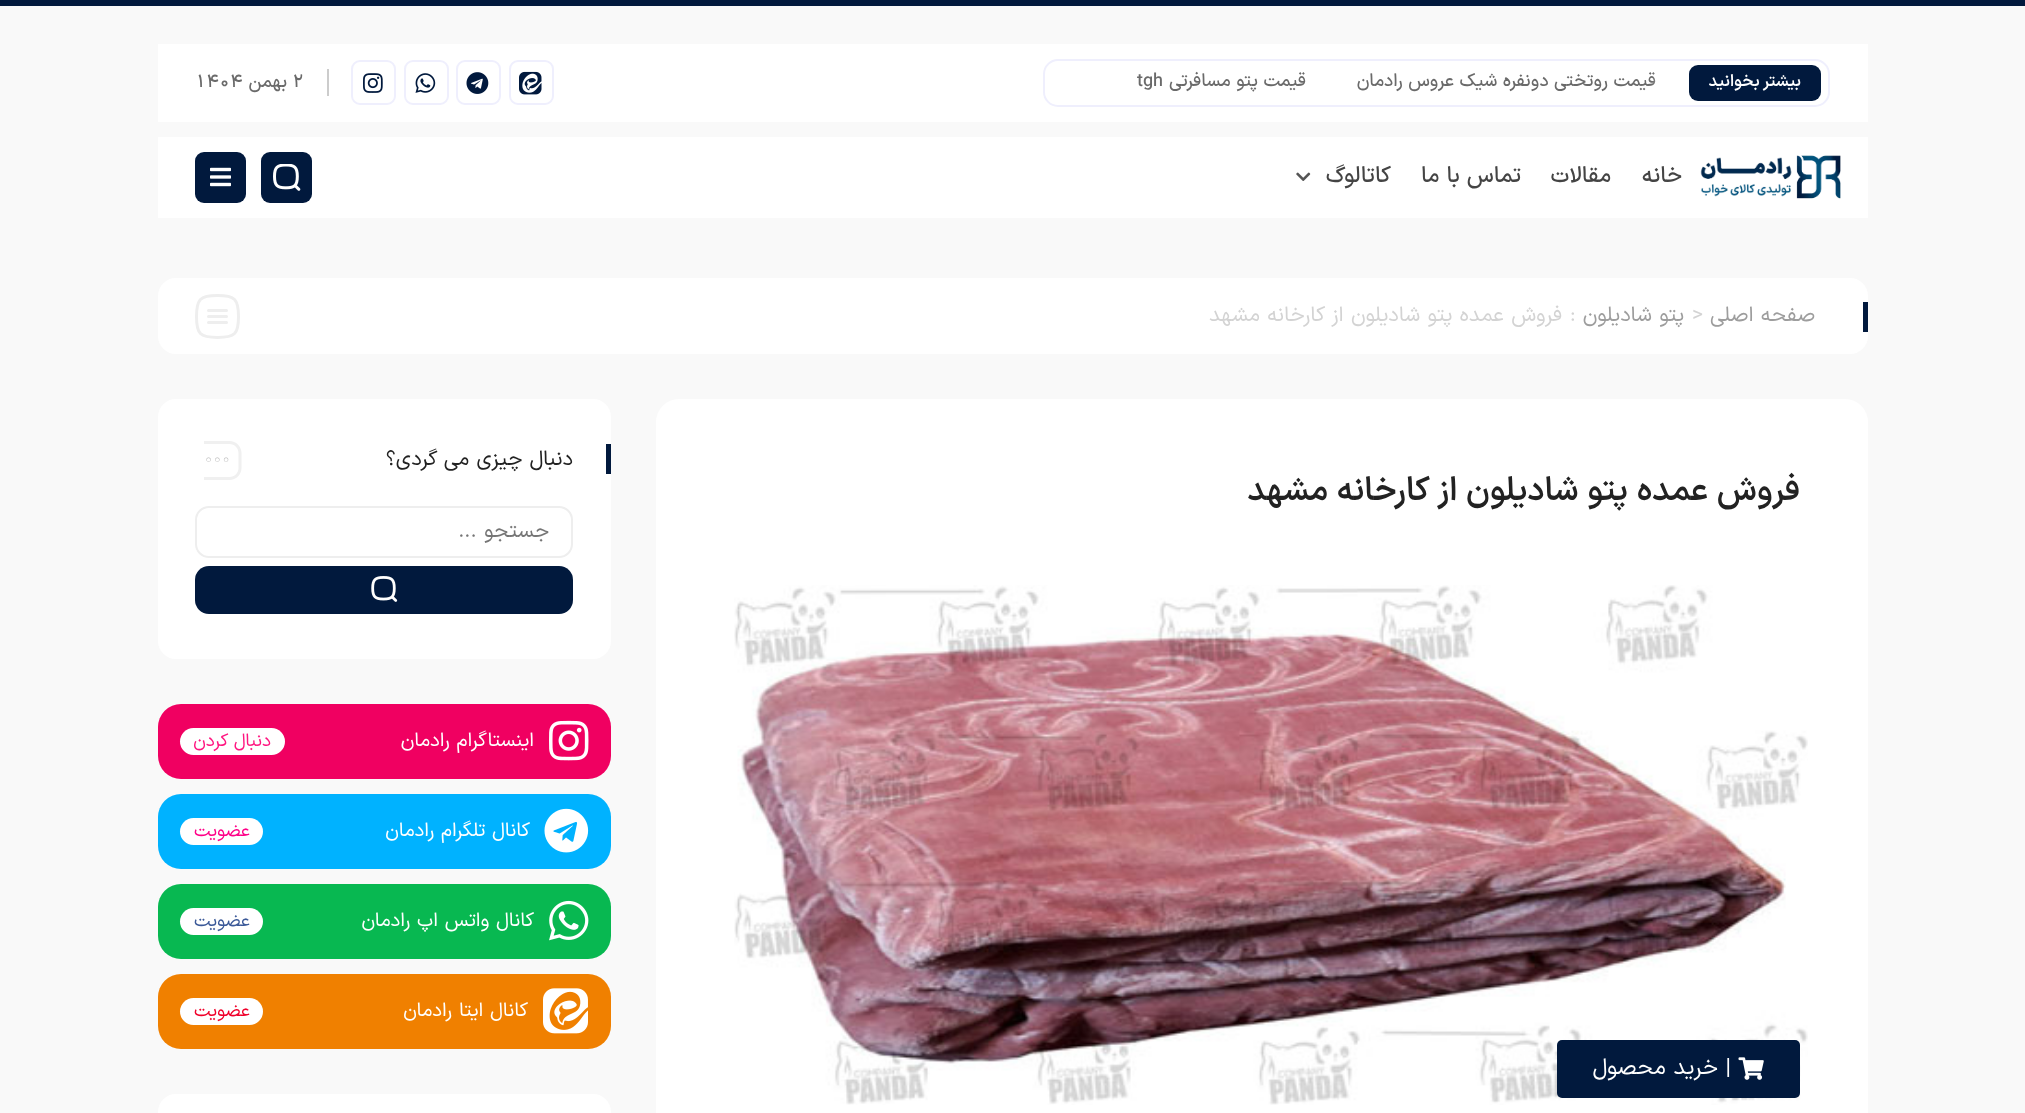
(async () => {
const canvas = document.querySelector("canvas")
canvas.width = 2025
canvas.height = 1113
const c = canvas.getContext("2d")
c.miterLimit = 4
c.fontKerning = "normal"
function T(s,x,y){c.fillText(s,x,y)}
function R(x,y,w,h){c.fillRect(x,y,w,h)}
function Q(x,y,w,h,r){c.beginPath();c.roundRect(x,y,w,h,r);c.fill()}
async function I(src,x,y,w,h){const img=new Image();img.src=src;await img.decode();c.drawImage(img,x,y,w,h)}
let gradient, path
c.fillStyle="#f9f9f9"
R(0,0,2025,1113)
c.fillStyle="#01193d"
R(0,0,2025,6)
c.fillStyle="#fff"
R(158,44,1710,78)
c.beginPath()
c.roundRect(1044,60,785,46,14)
c.strokeStyle="#efeffd"
c.lineWidth=2
c.stroke()
c.fillStyle="#01193d"
Q(1689,65,132,36,9)
c.direction="rtl"
c.font="600 16.5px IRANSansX"
c.fillStyle="#fff"
T("بیشتر بخوانید",1801,86)
c.font="500 18px IRANSansX"
c.fillStyle="#6a6a6a"
T("قیمت روتختی دونفره شیک عروس رادمان",1656,86)
gradient = c.createLinearGradient(1652,83,1682,83)
gradient.addColorStop(0,"#ffffff00")
gradient.addColorStop(.7,"#fff")
c.fillStyle = gradient
R(1652,72,4,13)
c.fillStyle="#6a6a6a"
T("قیمت پتو مسافرتی",1306,86)
c.direction="ltr"
T("tgh",1137,86)
c.beginPath()
c.roundRect(510,61,43,43,8)
c.stroke()
await I("1.png",519,71,23,24)
c.beginPath()
c.roundRect(457,61,43,43,8)
c.stroke()
await I("2.png",466,72,23,22)
c.beginPath()
c.roundRect(405,61,43,43,8)
c.stroke()
await I("3.png",415,73,21,20)
c.beginPath()
c.roundRect(352,61,43,43,8)
c.stroke()
await I("4.png",363,73,20,20)
c.fillStyle="#ccc"
R(327,69,2,27)
c.fillStyle="#6a6a6a"
T("2",292,87)
c.direction="rtl"
T("بهمن",287,87)
c.direction="ltr"
T("1404",195,87)
c.fillStyle="#fff"
R(158,137,1710,81)
await I("5.png",1700,155,141,44)
c.direction="rtl"
c.font="500 22.5px IRANSansX"
c.fillStyle="#444"
T("خانه",1682,182)
T("مقالات",1611,182)
T("تماس با ما",1521,182)
T("کاتالوگ",1391,182)
await I("6.png",1296,172,15,9)
c.fillStyle="#01193d"
Q(261,152,51,51,9)
await I("7.png",273,164,28,27)
Q(195,152,51,51,9)
await I("8.png",210,167,21,20)
c.fillStyle="#fff"
Q(158,278,1710,76,18)
c.fillStyle="#01193d"
R(1863,302,5,30)
c.font="21px IRANSansX"
c.fillStyle="#9d9d9d"
T("صفحه اصلی",1815,321)
c.direction="ltr"
c.fillStyle="#d3d3d3"
T(">",1692,321)
c.direction="rtl"
c.fillStyle="#9d9d9d"
T("پتو شادیلون",1684,321)
c.direction="ltr"
c.fillStyle="#d3d3d3"
T(":",1570,321)
c.direction="rtl"
T("فروش عمده پتو شادیلون از کارخانه مشهد",1562,321)
path = new Path2D("M196.5 316.5c0 17.5 3.5 21 21 21c17.5 0 21-3.5 21-21c0-17.5-3.5-21-21-21c-17.5 0-21 3.5-21 21zm12-6h18m-18 6h18m-18 6h18")
c.strokeStyle="#eee"
c.lineWidth=3
c.lineCap="round"
c.lineJoin="round"
c.stroke(path)
c.fillStyle="#fff"
Q(656,399,1212,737,23)
c.font="600 33px IRANSansX"
c.fillStyle="#222"
T("فروش عمده پتو شادیلون از کارخانه مشهد",1800,500)
await I("9.png",734,585,1074,520)
c.fillStyle="#01193d"
Q(1557,1040,243,58,5)
await I("10.png",1738,1057,26,23)
c.font="22.5px IRANSansX"
c.fillStyle="#fff"
T("| خرید محصول",1731,1074)
Q(158,399,453,260,18)
c.fillStyle="#01193d"
R(606,444,5,30)
c.font="21px IRANSansX"
c.fillStyle="#222"
T("دنبال چیزی می گردی؟",573,465)
c.fillStyle="#f0f0f0"
path = new Path2D("M204 441h25.5c6.5 0 12 5.5 12 12v15c0 6.5-5.5 12-12 12h-25.5zm0 3h25.5c5 0 9 4 9 9v15c0 5-4 9-9 9h-25.5z")
c.fill(path,"evenodd")
c.direction="ltr"
c.font="100 16.5px IRANSansX"
c.fillStyle="#b7b7b7"
T("000",204,463)
c.beginPath()
c.roundRect(196,507,376,50,13)
c.lineWidth=2
c.lineJoin="miter"
c.stroke()
c.direction="rtl"
c.font="21px IRANSansX"
c.fillStyle="#757575"
T("جستجو ...",549,537)
c.fillStyle="#01193d"
Q(195,566,378,48,14)
await I("11.png",371,576,27,26)
c.fillStyle="#f00061"
Q(158,704,453,75,23)
await I("12.png",549,720,40,41)
c.font="19.5px IRANSansX"
c.fillStyle="#fff"
T("اینستاگرام رادمان",534,746)
Q(180,728,105,27,13.5)
c.font="18px IRANSansX"
c.fillStyle="#ff1680"
T("دنبال کردن",271,746)
c.fillStyle="#00b2ff"
Q(158,794,453,75,23)
await I("13.png",544,808,45,45)
c.font="19.5px IRANSansX"
c.fillStyle="#fff"
T("کانال تلگرام رادمان",530,836)
Q(180,818,83,27,13.5)
c.font="18px IRANSansX"
c.fillStyle="#f08"
T("عضویت",250,836)
c.fillStyle="#08b851"
Q(158,884,453,75,23)
await I("14.png",549,900,40,41)
c.font="19.5px IRANSansX"
c.fillStyle="#fff"
T("کانال واتس اپ رادمان",534,926)
Q(180,908,83,27,13.5)
c.font="18px IRANSansX"
c.fillStyle="#3b5998"
T("عضویت",250,926)
c.fillStyle="#f08000"
Q(158,974,453,75,23)
await I("15.png",543,988,45,46)
c.font="19.5px IRANSansX"
c.fillStyle="#fff"
T("کانال ایتا رادمان",528,1016)
Q(180,998,83,27,13.5)
c.font="18px IRANSansX"
c.fillStyle="#f0002a"
T("عضویت",250,1016)
c.fillStyle="#fff"
Q(158,1094,453,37,18)
})()
